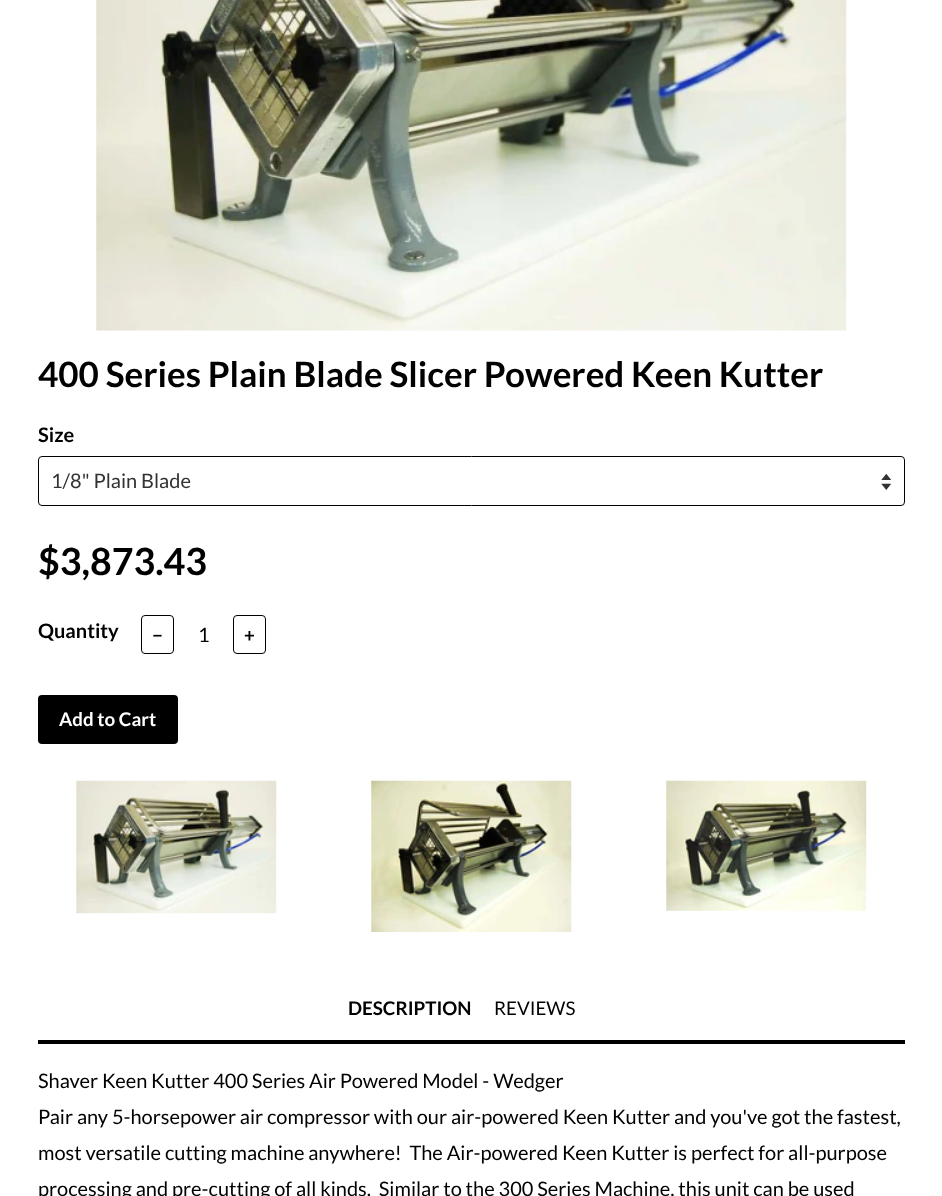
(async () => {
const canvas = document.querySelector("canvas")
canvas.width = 942
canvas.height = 1196
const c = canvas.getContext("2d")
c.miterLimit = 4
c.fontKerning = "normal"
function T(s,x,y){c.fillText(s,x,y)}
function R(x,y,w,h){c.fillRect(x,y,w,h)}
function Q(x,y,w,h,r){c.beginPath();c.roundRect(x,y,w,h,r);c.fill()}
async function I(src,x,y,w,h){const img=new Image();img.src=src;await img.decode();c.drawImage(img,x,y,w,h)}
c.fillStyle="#fff"
R(0,0,942,1196)
await I("1.png",96,0,751,331)
c.font="bold 35px Lato"
c.fillStyle="#000"
T("400 Series Plain Blade Slicer Powered Keen Kutter",38,387)
c.font="bold 20px Lato"
T("Size",38,442)
await I("2.png",881,474,10,16)
c.beginPath()
c.roundRect(38.5,456.5,866,49,3.5)
c.strokeStyle="#000"
c.stroke()
c.font="20px Lato"
c.fillStyle="#333"
T("1/8\" Plain Blade",51,488)
c.font="bold 37.5px Lato"
c.fillStyle="#000"
T("$3,873.43",38,575)
c.font="bold 20px Lato"
T("Quantity",38,638)
c.beginPath()
c.roundRect(141.5,615.5,32,38,3.5)
c.stroke()
c.font="bold 18.75px Lato"
T("−",152,642)
c.font="20px Lato"
T("1",198,642)
c.beginPath()
c.roundRect(233.5,615.5,32,38,3.5)
c.stroke()
c.font="bold 18.75px Lato"
T("+",244,642)
Q(38,695,140,49,4)
c.fillStyle="#fff"
T("Add to Cart",59,726)
await I("3.png",76,780,201,134)
await I("4.png",371,780,201,152)
await I("5.png",666,780,201,131)
c.fillStyle="#000"
R(38,1040,867,4)
T("DESCRIPTION",348,1015)
c.font="18.75px Lato"
T("REVIEWS",494,1015)
c.font="20px Lato"
T("Shaver Keen Kutter 400 Series Air Powered Model - Wedger",38,1088)
T("Pair any 5-horsepower air compressor with our air-powered Keen Kutter and you've got the fastest,",38,1124)
T("most versatile cutting machine anywhere!  The Air-powered Keen Kutter is perfect for all-purpose",38,1160)
T("processing and pre-cutting of all kinds.  Similar to the 300 Series Machine, this unit can be used",38,1196)
})()
